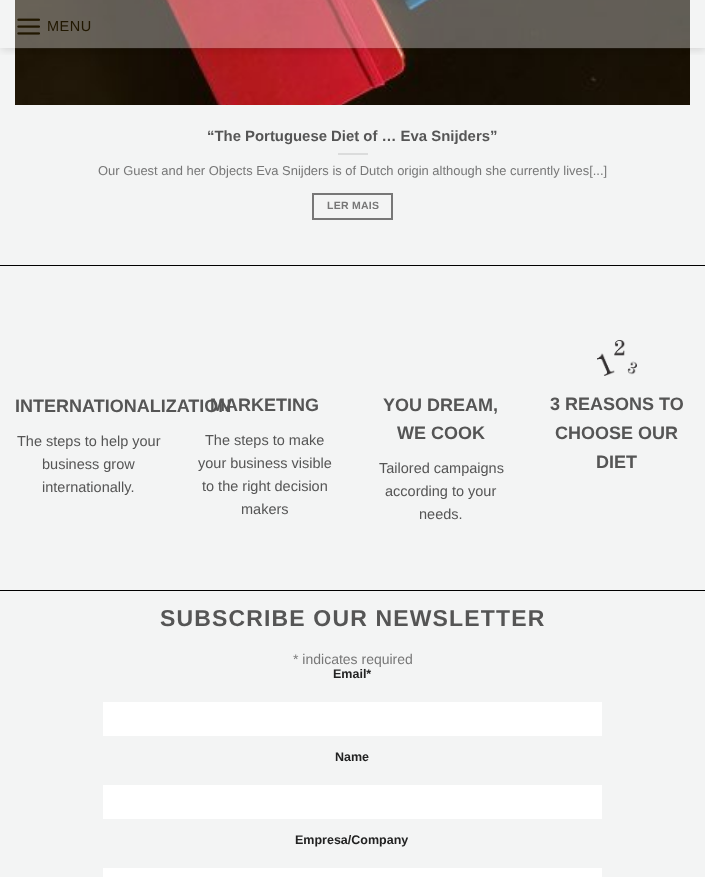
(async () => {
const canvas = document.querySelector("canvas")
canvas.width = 705
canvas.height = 877
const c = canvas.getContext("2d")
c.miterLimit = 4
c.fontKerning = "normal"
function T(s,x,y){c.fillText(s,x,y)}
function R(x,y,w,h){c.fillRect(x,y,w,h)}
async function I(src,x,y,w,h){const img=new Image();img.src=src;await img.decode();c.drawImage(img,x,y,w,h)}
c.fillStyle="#f3f4f4"
R(0,0,705,877)
await I("2.png",15,0,675,105)
c.save()
c.beginPath()
c.rect(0,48,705,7)
c.clip()
c.fillStyle="#00000026"
c.filter="blur(5px)"
c.beginPath()
c.rect(1,1,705,48)
c.fill()
c.filter="none"
c.restore()
c.fillStyle="#ffffff2e"
R(15,0,675,48)
R(15,0,675,48)
await I("1.png",17,18,23,17)
c.letterSpacing="0.5px"
c.font="14.5px Liberation Sans"
c.fillStyle="#211700"
T("MENU",47,31)
c.fillStyle="#7777771a"
R(15,48,675,1)
c.letterSpacing="0px"
c.font="bold 14.9px Liberation Sans"
c.fillStyle="#555"
T("“The Portuguese Diet of … Eva Snijders”",207,141)
c.fillStyle="#dbdcdc"
R(338,153,30,2)
c.font="12.95px Liberation Sans"
c.fillStyle="#777"
T("Our Guest and her Objects Eva Snijders is of Dutch origin although she currently lives[...]",98,175)
c.strokeStyle="#777"
c.lineWidth=2
c.strokeRect(313,194,79,25)
c.letterSpacing="0.25px"
c.font="bold 10.5px Liberation Sans"
T("LER MAIS",327,209)
c.fillStyle="#000"
R(0,265,705,1)
c.letterSpacing="0px"
c.font="bold 18px Liberation Sans"
c.fillStyle="#555"
T("INTERNATIONALIZATION",15,412)
c.font="14.5px Liberation Sans"
T("The steps to help your",17,446)
T("business grow",42,469)
T("internationally.",42,492)
c.font="bold 18px Liberation Sans"
T("MARKETING",210,411)
c.font="14.5px Liberation Sans"
T("The steps to make",205,445)
T("your business visible",198,468)
T("to the right decision",202,491)
T("makers",241,514)
c.font="bold 18px Liberation Sans"
T("YOU DREAM,",383,411)
T("WE COOK",397,439)
c.font="14.5px Liberation Sans"
T("Tailored campaigns",379,473)
T("according to your",385,496)
T("needs.",419,519)
await I("3.png",597,340,40,36)
c.font="bold 18px Liberation Sans"
T("3 REASONS TO",550,410)
T("CHOOSE OUR",555,439)
T("DIET",596,468)
c.fillStyle="#000"
R(0,590,705,1)
c.letterSpacing="1.15px"
c.font="bold 23px Liberation Sans"
c.fillStyle="#555"
T("SUBSCRIBE OUR NEWSLETTER",160,626)
c.letterSpacing="0px"
c.font="14px Liberation Sans"
c.fillStyle="#777"
T("* indicates required",293,664)
c.font="bold 12.5px Liberation Sans"
c.fillStyle="#222"
T("Email*",333,678)
c.fillStyle="#fff"
R(103,702,499,34)
c.fillStyle="#222"
T("Name",335,761)
c.fillStyle="#fff"
R(103,785,499,34)
c.fillStyle="#222"
T("Empresa/Company",295,844)
c.fillStyle="#fff"
R(103,868,499,9)
})()
